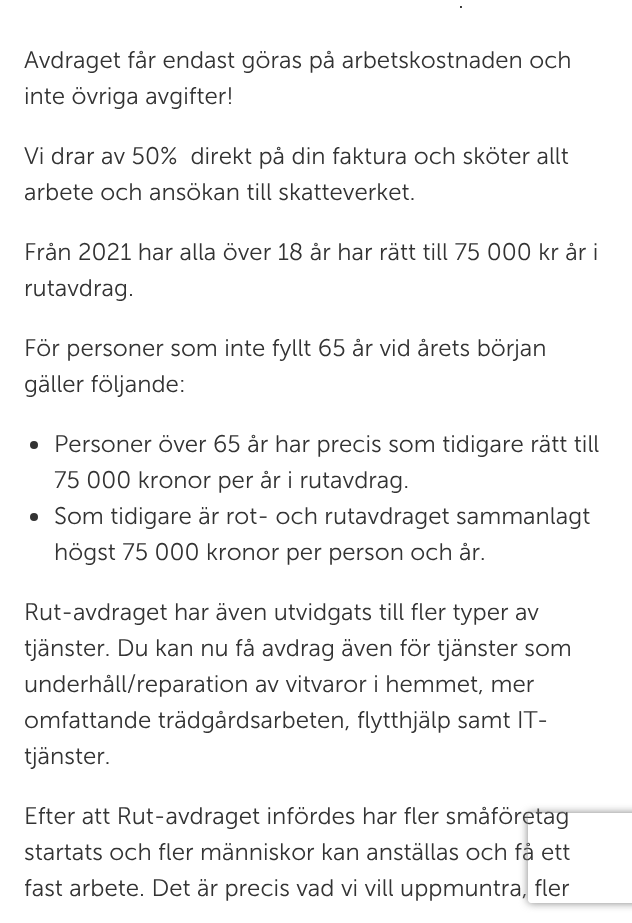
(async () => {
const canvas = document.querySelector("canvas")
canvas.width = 632
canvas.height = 923
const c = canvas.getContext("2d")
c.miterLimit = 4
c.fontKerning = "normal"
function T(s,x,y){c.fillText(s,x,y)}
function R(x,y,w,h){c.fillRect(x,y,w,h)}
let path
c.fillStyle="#fff"
R(0,0,632,923)
c.font="300 24px 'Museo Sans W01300'"
c.fillStyle="#333"
T(".",458,8)
T("Avdraget får endast göras på arbetskostnaden och",24,68)
T("inte övriga avgifter!",24,104)
T("Vi drar av 50%  direkt på din faktura och sköter allt",24,164)
T("arbete och ansökan till skatteverket.",24,200)
T("Från 2021 har alla över 18 år har rätt till 75 000 kr år i",24,260)
T("rutavdrag.",24,296)
T("För personer som inte fyllt 65 år vid årets början",24,356)
T("gäller följande:",24,392)
c.beginPath()
c.arc(34,445,4,0,7)
c.fill()
T("Personer över 65 år har precis som tidigare rätt till",54,452)
T("75 000 kronor per år i rutavdrag.",54,488)
c.beginPath()
c.arc(34,517,4,0,7)
c.fill()
T("Som tidigare är rot- och rutavdraget sammanlagt",54,524)
T("högst 75 000 kronor per person och år.",54,560)
T("Rut-avdraget har även utvidgats till fler typer av",24,620)
T("tjänster. Du kan nu få avdrag även för tjänster som",24,656)
T("underhåll/reparation av vitvaror i hemmet, mer",24,692)
T("omfattande trädgårdsarbeten, flytthjälp samt IT-",24,728)
T("tjänster.",24,764)
T("Efter att Rut-avdraget infördes har fler småföretag",24,824)
T("startats och fler människor kan anställas och få ett",24,860)
T("fast arbete. Det är precis vad vi vill uppmuntra, fler",24,896)
c.save()
path = new Path2D("M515 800h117v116h-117zm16 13h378c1.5 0 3 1.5 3 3v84c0 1.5-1.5 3-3 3h-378c-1.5 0-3-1.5-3-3v-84c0-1.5 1.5-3 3-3z")
c.clip(path,"evenodd")
c.fillStyle="#808080"
c.filter="blur(4px)"
c.beginPath()
c.roundRect(528,813,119,90,3)
c.fill()
c.filter="none"
c.restore()
})()
